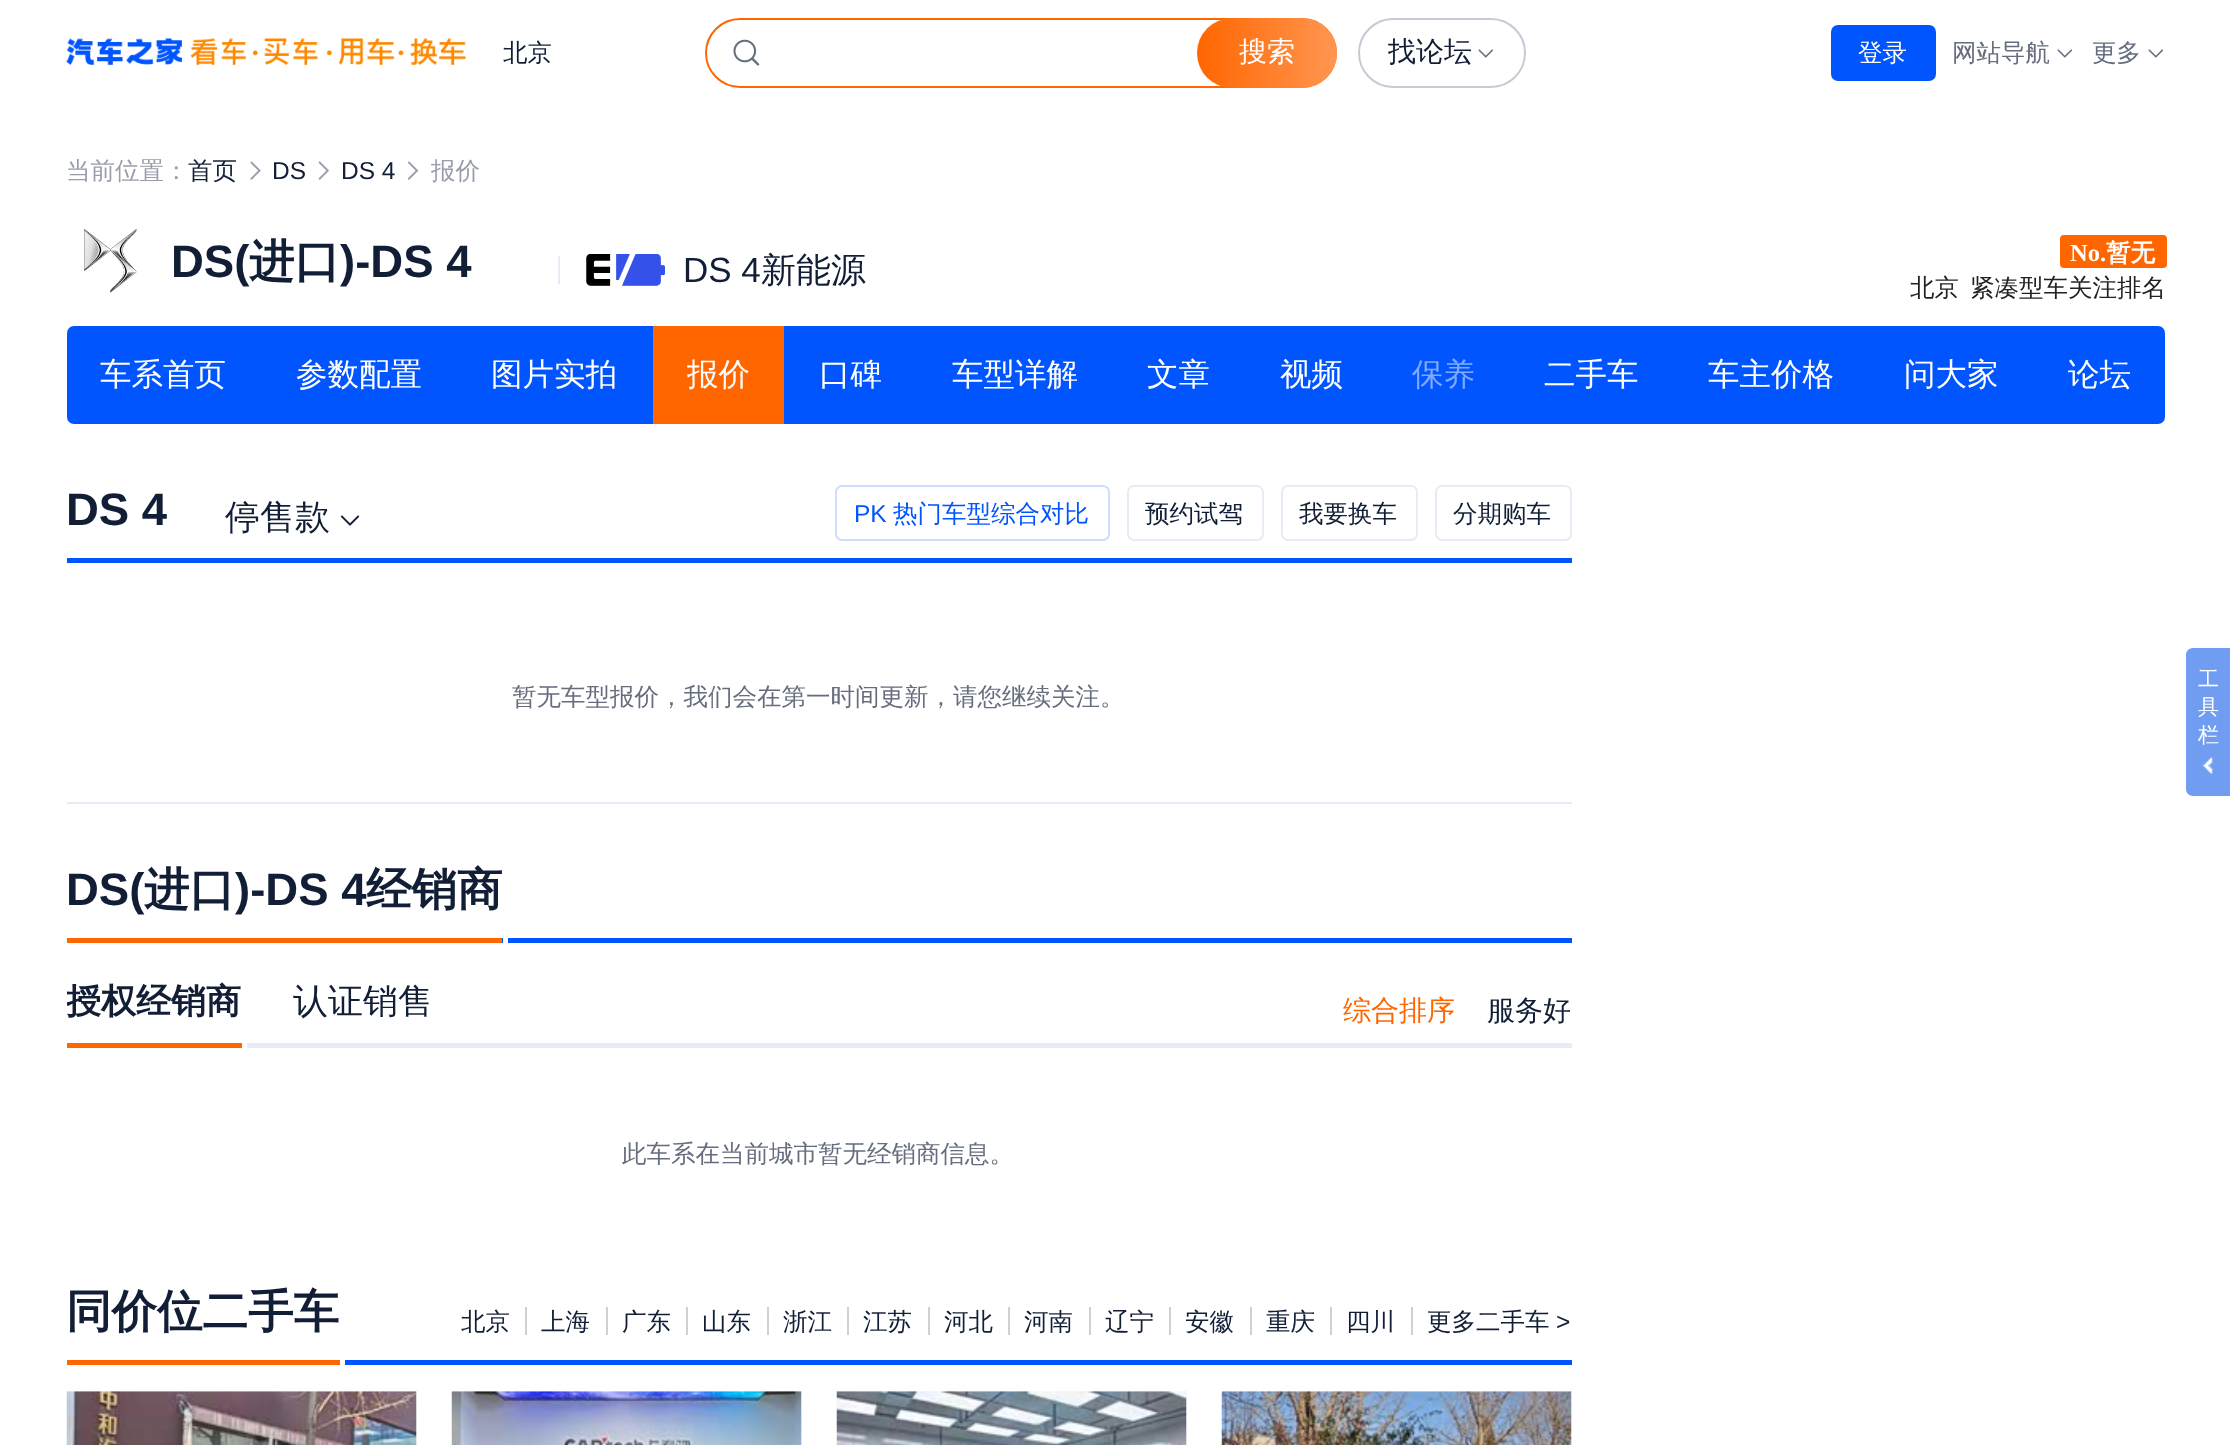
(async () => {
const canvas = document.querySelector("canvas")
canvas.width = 2230
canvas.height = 1445
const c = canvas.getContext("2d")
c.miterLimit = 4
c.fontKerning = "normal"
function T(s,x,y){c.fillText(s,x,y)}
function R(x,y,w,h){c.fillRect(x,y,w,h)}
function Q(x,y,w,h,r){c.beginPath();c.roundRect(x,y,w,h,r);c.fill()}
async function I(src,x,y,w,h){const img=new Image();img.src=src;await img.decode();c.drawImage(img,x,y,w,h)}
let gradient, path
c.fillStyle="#fff"
R(0,0,2230,1445)
await I("1.png",66,38,400,27)
c.font="500 24.5px WenQuanYi Zen Hei"
c.fillStyle="#111e36"
T("北京",503,61)
c.beginPath()
c.roundRect(706,19,630,68,34)
c.strokeStyle="#f60"
c.lineWidth=2
c.stroke()
await I("2.png",733,39,27,27)
gradient = c.createLinearGradient(1337,52,1197,53)
gradient.addColorStop(0,"#ff9651")
gradient.addColorStop(1,"#f60")
c.fillStyle = gradient
Q(1197,18,140,70,35)
c.font="500 28px WenQuanYi Zen Hei"
c.fillStyle="#fff"
T("搜索",1239,61)
c.beginPath()
c.roundRect(1359,19,166,68,34)
c.strokeStyle="#c5cad4"
c.stroke()
c.fillStyle="#111e36"
T("找论坛",1388,61)
await I("3.png",1478,49,15,9)
c.fillStyle="#05f"
Q(1831,25,105,56,7)
c.font="500 24.5px WenQuanYi Zen Hei"
c.fillStyle="#fff"
T("登录",1858,61)
c.fillStyle="#666d7f"
T("网站导航",1952,61)
await I("4.png",2057,49,16,9)
T("更多",2092,61)
await I("4.png",2148,49,16,9)
c.fillStyle="#999cab"
T("当前位置：",66,179)
c.fillStyle="#111e36"
T("首页",188,179)
await I("5.png",250,161,11,19)
c.font="24.5px Liberation Sans"
T("DS",272,179)
await I("6.png",318,161,11,19)
T("DS 4",341,179)
await I("7.png",407,161,12,19)
c.font="500 24.5px WenQuanYi Zen Hei"
c.fillStyle="#999cab"
T("报价",431,179)
await I("8.png",84,229,53,64)
c.font="bold 45.5px Liberation Sans"
c.fillStyle="#111e36"
T("DS(",171,277)
c.font="bold 45.5px WenQuanYi Zen Hei"
T("进口",249,277)
c.font="bold 45.5px Liberation Sans"
T(")-DS 4",340,277)
c.fillStyle="#e6ebf5"
R(558,256,2,28)
await I("9.png",586,254,79,32)
c.font="35px Liberation Sans"
c.fillStyle="#111e36"
T("DS 4",683,282)
c.font="500 35px WenQuanYi Zen Hei"
T("新能源",761,282)
c.fillStyle="#f60"
Q(2060,235,107,33,4)
c.font="bold 24.5px Liberation Serif"
c.fillStyle="#fff"
T("No.",2070,261)
c.font="bold 24.5px WenQuanYi Zen Hei"
T("暂无",2106,261)
c.font="500 24.5px WenQuanYi Zen Hei"
c.fillStyle="#222"
T("北京",1910,296)
T("紧凑型车关注排名",1970,296)
c.fillStyle="#05f"
c.beginPath()
c.roundRect(67,326,194,98,[7,0,0,7])
c.fill()
c.font="500 31.5px WenQuanYi Zen Hei"
c.fillStyle="#fff"
T("车系首页",100,385)
c.fillStyle="#05f"
R(261,326,392,98)
c.fillStyle="#fff"
T("参数配置",296,385)
T("图片实拍",491,385)
c.fillStyle="#f60"
R(653,326,131,98)
c.fillStyle="#fff"
T("报价",687,385)
c.fillStyle="#05f"
R(784,326,1250,98)
c.fillStyle="#fff"
T("口碑",819,385)
T("车型详解",952,385)
T("文章",1147,385)
T("视频",1280,385)
c.fillStyle="#80aaff"
T("保养",1412,385)
c.fillStyle="#fff"
T("二手车",1544,385)
T("车主价格",1708,385)
T("问大家",1904,385)
c.fillStyle="#05f"
c.beginPath()
c.roundRect(2034,326,131,98,[0,7,7,0])
c.fill()
c.fillStyle="#fff"
T("论坛",2068,385)
c.font="bold 45.5px Liberation Sans"
c.fillStyle="#111e36"
T("DS 4",66,525)
c.font="500 35px WenQuanYi Zen Hei"
T("停售款",225,529)
await I("10.png",340,515,20,11)
c.beginPath()
c.roundRect(836,486,273,54,6)
c.strokeStyle="#cdf"
c.stroke()
c.font="24.5px Liberation Sans"
c.fillStyle="#05f"
T("PK",854,522)
c.font="500 24.5px WenQuanYi Zen Hei"
T("热门车型综合对比",893,522)
c.beginPath()
c.roundRect(1128,486,135,54,6)
c.strokeStyle="#e6ebf5"
c.stroke()
c.fillStyle="#111e36"
T("预约试驾",1145,522)
c.beginPath()
c.roundRect(1282,486,135,54,6)
c.stroke()
T("我要换车",1299,522)
c.beginPath()
c.roundRect(1436,486,135,54,6)
c.stroke()
T("分期购车",1453,522)
c.fillStyle="#05f"
R(67,558,1505,5)
c.fillStyle="#666d7f"
T("暂无车型报价，我们会在第一时间更新，请您继续关注。",512,705)
c.fillStyle="#e6ebf5"
R(67,802,1505,2)
c.font="bold 45.5px Liberation Sans"
c.fillStyle="#111e36"
T("DS(",66,905)
c.font="bold 45.5px WenQuanYi Zen Hei"
T("进口",144,905)
c.font="bold 45.5px Liberation Sans"
T(")-DS 4",235,905)
c.font="bold 45.5px WenQuanYi Zen Hei"
T("经销商",366,905)
c.fillStyle="#f60"
R(67,938,435,5)
c.fillStyle="#05f"
R(502,938,1070,5)
c.strokeStyle="#fff"
c.lineWidth=5
c.strokeRect(63.5,935.5,442,11)
c.save()
c.beginPath()
c.rect(67,975,1505,73)
c.clip()
c.font="bold 35px WenQuanYi Zen Hei"
c.fillStyle="#111e36"
T("授权经销商",66,1013)
c.restore()
c.fillStyle="#f60"
R(67,1043,175,5)
c.font="500 35px WenQuanYi Zen Hei"
c.fillStyle="#111e36"
T("认证销售",293,1013)
c.font="500 28px WenQuanYi Zen Hei"
c.fillStyle="#f60"
T("综合排序",1343,1020)
c.fillStyle="#111e36"
T("服务好",1487,1020)
c.fillStyle="#e6ebf5"
R(247,1043,1325,5)
c.font="500 24.5px WenQuanYi Zen Hei"
c.fillStyle="#666d7f"
T("此车系在当前城市暂无经销商信息。",622,1162)
c.font="bold 45.5px WenQuanYi Zen Hei"
c.fillStyle="#111e36"
T("同价位二手车",66,1327)
c.fillStyle="#f60"
R(67,1360,273,5)
c.font="500 24.5px WenQuanYi Zen Hei"
c.fillStyle="#111e36"
T("北京",461,1330)
c.fillStyle="#d0d0d0"
R(525,1307,2,28)
c.fillStyle="#111e36"
T("上海",541,1330)
c.fillStyle="#d0d0d0"
R(606,1307,2,28)
c.fillStyle="#111e36"
T("广东",622,1330)
c.fillStyle="#d0d0d0"
R(686,1307,2,28)
c.fillStyle="#111e36"
T("山东",702,1330)
c.fillStyle="#d0d0d0"
R(767,1307,2,28)
c.fillStyle="#111e36"
T("浙江",783,1330)
c.fillStyle="#d0d0d0"
R(847,1307,2,28)
c.fillStyle="#111e36"
T("江苏",863,1330)
c.fillStyle="#d0d0d0"
R(928,1307,2,28)
c.fillStyle="#111e36"
T("河北",944,1330)
c.fillStyle="#d0d0d0"
R(1008,1307,2,28)
c.fillStyle="#111e36"
T("河南",1024,1330)
c.fillStyle="#d0d0d0"
R(1089,1307,2,28)
c.fillStyle="#111e36"
T("辽宁",1105,1330)
c.fillStyle="#d0d0d0"
R(1169,1307,2,28)
c.fillStyle="#111e36"
T("安徽",1185,1330)
c.fillStyle="#d0d0d0"
R(1250,1307,2,28)
c.fillStyle="#111e36"
T("重庆",1266,1330)
c.fillStyle="#d0d0d0"
R(1330,1307,2,28)
c.fillStyle="#111e36"
T("四川",1346,1330)
c.fillStyle="#d0d0d0"
R(1411,1307,2,28)
c.fillStyle="#111e36"
T("更多二手车",1427,1330)
c.font="24.5px Liberation Sans"
T(">",1556,1330)
c.fillStyle="#05f"
R(345,1360,1227,5)
c.fillStyle="#f8f9fc"
R(67,1391,350,54)
await I("11.png",66,1391,351,54)
R(452,1391,350,54)
await I("12.png",451,1391,351,54)
R(837,1391,350,54)
await I("13.png",836,1391,351,54)
R(1222,1391,350,54)
await I("14.png",1221,1391,351,54)
c.fillStyle="#709df1"
path = new Path2D("M2193 648h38v148h-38c-4 0-7-3-7-7v-134c0-4 3-7 7-7z")
c.fill(path)
c.font="500 21px WenQuanYi Zen Hei"
c.fillStyle="#fff"
T("工",2198,686)
T("具",2198,714)
T("栏",2198,742)
await I("15.png",2202,757,11,17)
})()
